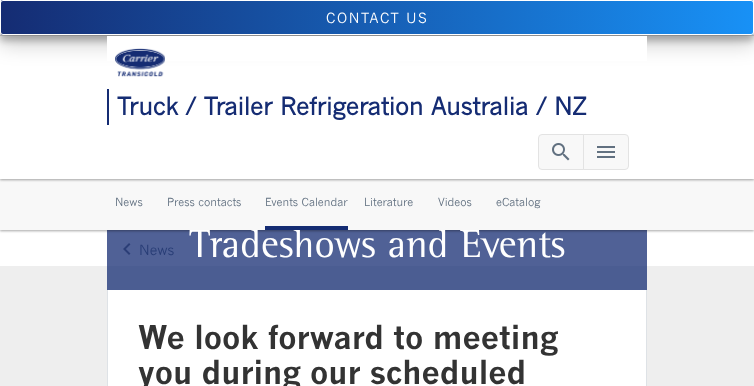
(async () => {
const canvas = document.querySelector("canvas")
canvas.width = 754
canvas.height = 386
const c = canvas.getContext("2d")
c.miterLimit = 4
c.fontKerning = "normal"
function T(s,x,y){c.fillText(s,x,y)}
function R(x,y,w,h){c.fillRect(x,y,w,h)}
async function I(src,x,y,w,h){const img=new Image();img.src=src;await img.decode();c.drawImage(img,x,y,w,h)}
let gradient
c.fillStyle="#eee"
R(0,0,754,386)
c.fillStyle="#4b5d92"
R(107,266,540,24)
c.fillStyle="#fff"
R(0,230,754,36)
c.fillStyle="#506196"
R(107,230,540,36)
c.fillStyle="#0000001f"
c.filter="blur(1.5px)"
c.beginPath()
c.rect(0,180,754,51)
c.fill()
c.filter="none"
c.fillStyle="#0000003d"
c.filter="blur(1px)"
c.beginPath()
c.rect(0,180,754,51)
c.fill()
c.filter="none"
c.font="40px 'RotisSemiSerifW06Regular'"
c.fillStyle="#fff"
T("Tradeshows and Events",189,257)
c.fillStyle="#f8f8f8"
R(0,179,754,51)
c.fillStyle="#0000001f"
c.filter="blur(1.5px)"
c.beginPath()
c.rect(0,1,754,179)
c.fill()
c.filter="none"
c.fillStyle="#0000003d"
c.filter="blur(1px)"
c.beginPath()
c.rect(0,1,754,179)
c.fill()
c.filter="none"
c.fillStyle="#fff"
R(0,0,754,179)
c.fillStyle="#dadada"
R(0,35,754,1)
c.fillStyle="#00000030"
c.filter="blur(10px)"
c.beginPath()
c.roundRect(0,10,754,35,3)
c.fill()
c.filter="none"
c.fillStyle="#0000003b"
c.filter="blur(3px)"
c.beginPath()
c.roundRect(0,6,754,35,3)
c.fill()
c.filter="none"
c.save()
c.beginPath()
c.roundRect(0,0,754,35,3)
c.clip()
gradient = c.createLinearGradient(753,18,1,17)
gradient.addColorStop(0,"#1891f6")
gradient.addColorStop(1,"#152c73")
c.fillStyle = gradient
R(1,0,752,35)
c.restore()
c.beginPath()
c.roundRect(.5,.5,753,34,2.5)
c.strokeStyle="#fff"
c.stroke()
c.letterSpacing="1.6px"
c.font="14px 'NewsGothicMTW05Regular'"
c.fillStyle="#fff"
T("CONTACT US",326,23)
R(107,36,540,25)
await I("1.png",115,48,50,29)
c.fillStyle="#152c73"
R(107,89,2,36)
c.letterSpacing="0px"
c.font="bold 24px 'NewsGothicMTW05Regular'"
T("Truck / Trailer Refrigeration Australia / NZ",117,115)
c.fillStyle="#f8f8f8"
c.beginPath()
c.roundRect(538.5,134.5,45,35,[3.5,0,0,3.5])
c.fill()
c.strokeStyle="#e3e3e3"
c.stroke()
await I("2.png",552,143,18,18)
c.beginPath()
c.roundRect(583.5,134.5,45,35,[0,3.5,3.5,0])
c.fill()
c.stroke()
await I("3.png",597,146,18,12)
c.font="11px 'NewsGothicMTW05Regular'"
c.fillStyle="#617080"
T("News",115,206)
T("Press contacts",167,206)
c.fillStyle="#152c73"
R(265,226,83,4)
c.fillStyle="#617080"
T("Events Calendar",265,206)
T("Literature",364,206)
T("Videos",438,206)
T("eCatalog",496,206)
c.fillStyle="#fff"
R(108,290,538,96)
c.fillStyle="#dee2e6"
R(646,290,1,96)
R(107,290,1,96)
c.font="bold 32px 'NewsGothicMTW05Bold'"
c.fillStyle="#333"
T("We look forward to meeting",138,349)
T("you during our scheduled",138,384)
await I("4.png",123,243,8,12)
c.font="14px 'NewsGothicMTW05Regular'"
c.fillStyle="#283d76"
T("News",139,255)
})()
